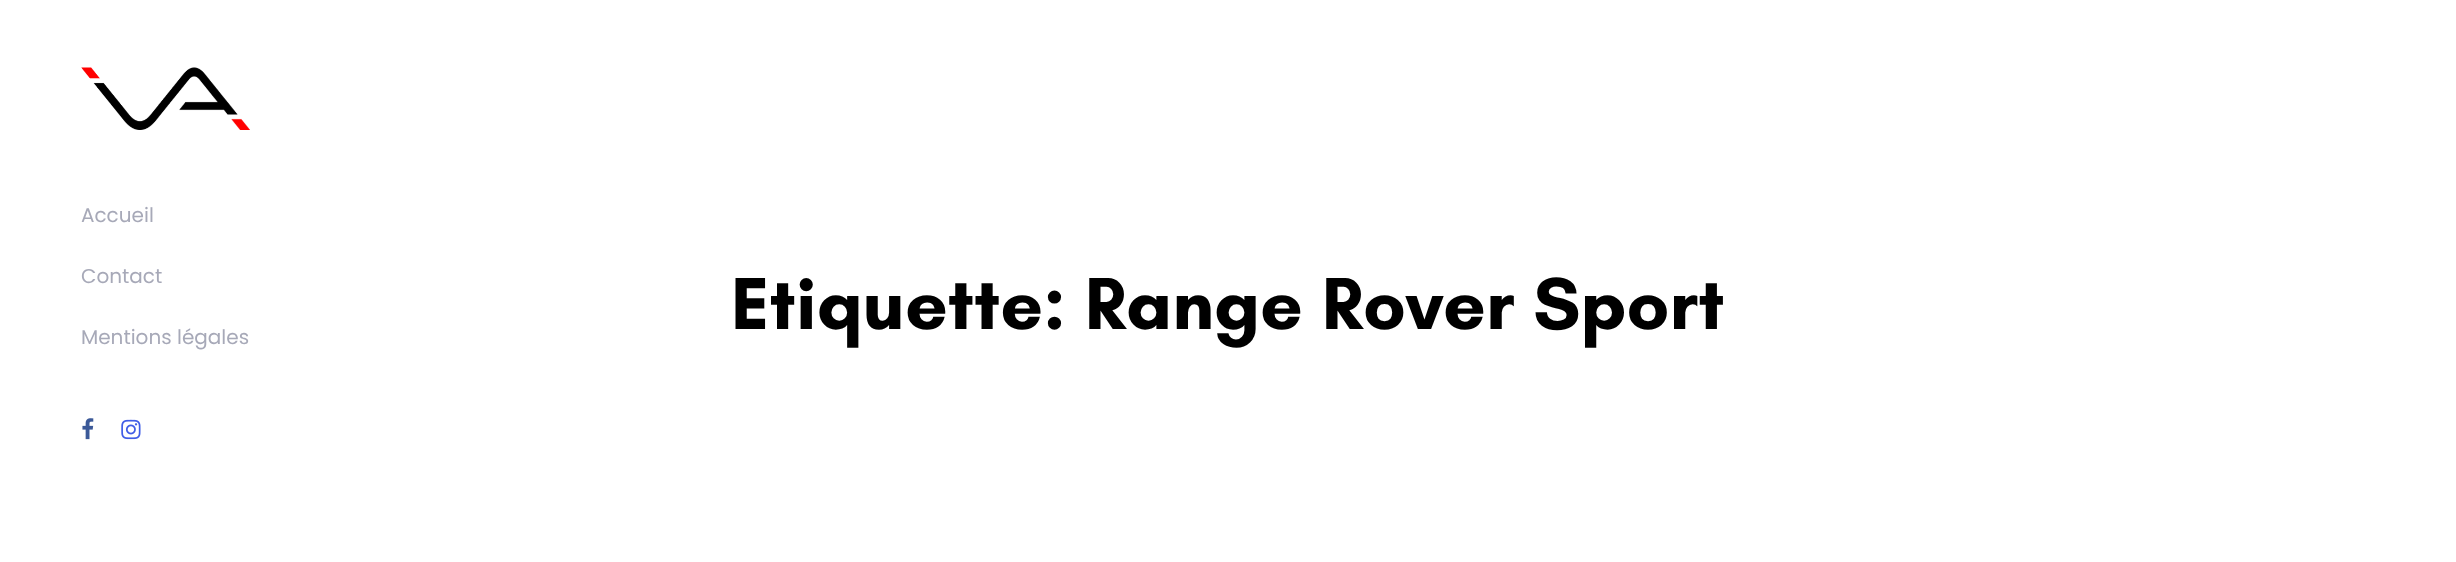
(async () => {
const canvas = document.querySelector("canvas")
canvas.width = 2456
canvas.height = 562
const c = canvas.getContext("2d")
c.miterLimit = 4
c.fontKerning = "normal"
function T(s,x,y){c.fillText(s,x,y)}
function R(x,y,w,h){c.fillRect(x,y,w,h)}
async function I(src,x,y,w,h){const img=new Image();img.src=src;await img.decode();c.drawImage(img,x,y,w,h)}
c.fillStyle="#fff"
R(0,0,2456,562)
await I("1.png",81,67,169,63)
c.font="20px Poppins"
c.fillStyle="#a7a9b8"
T("Accueil",81,222)
T("Contact",81,283)
T("Mentions légales",81,344)
await I("2.png",82,418,12,22)
await I("3.png",121,419,20,21)
c.font="bold 75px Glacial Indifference"
c.fillStyle="#000"
T("Etiquette: Range Rover Sport",731,329)
})()
